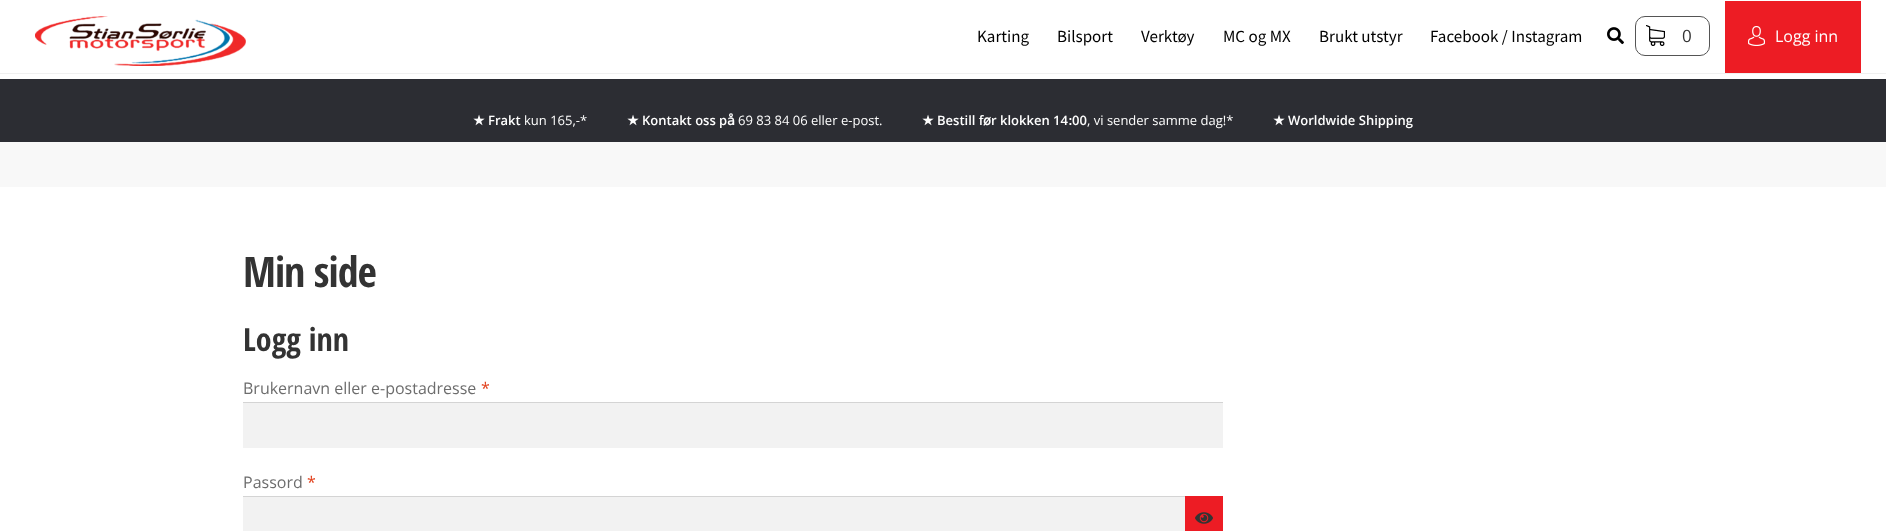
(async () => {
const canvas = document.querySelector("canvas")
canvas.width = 1886
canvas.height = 531
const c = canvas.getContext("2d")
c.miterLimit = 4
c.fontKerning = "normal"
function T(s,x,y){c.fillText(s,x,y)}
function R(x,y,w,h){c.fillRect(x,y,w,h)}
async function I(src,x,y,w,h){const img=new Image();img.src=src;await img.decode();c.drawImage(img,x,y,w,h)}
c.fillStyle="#fff"
R(0,0,1886,531)
c.fillStyle="#f0f0f0"
R(0,73,1886,1)
await I("1.png",35,16,211,50)
c.font="17px Source Sans Pro"
c.fillStyle="#000"
T("Karting",977,42)
T("Bilsport",1057,42)
T("Verktøy",1141,42)
T("MC og MX",1223,42)
T("Brukt utstyr",1319,42)
T("Facebook / Instagram",1430,42)
await I("2.png",1607,27,17,18)
await I("3.png",1646,25,19,21)
c.beginPath()
c.roundRect(1635.5,16.5,74,39,9.5)
c.strokeStyle="#555"
c.stroke()
c.font="17px Open Sans"
c.fillStyle="#333"
T("0",1682,42)
c.fillStyle="#ed1c24"
R(1725,1,136,72)
await I("4.png",1748,26,17,20)
c.font="16px Open Sans"
c.fillStyle="#fefefe"
T("Logg inn",1775,42)
c.fillStyle="#2c2d33"
R(0,79,1886,63)
c.font="bold 13px DejaVu Sans"
c.fillStyle="#fefefe"
T("★",473,125)
c.font="600 13px Open Sans"
T("Frakt",488,125)
c.font="13px Open Sans"
T("kun 165,-*",524,125)
c.font="bold 13px DejaVu Sans"
T("★",627,125)
c.font="600 13px Open Sans"
T("Kontakt oss p",642,125)
c.font="bold 13px DejaVu Sans"
T("å",727,125)
c.font="13px Open Sans"
T("69 83 84 06 eller",738,125)
T("e-post.",841,125)
c.font="bold 13px DejaVu Sans"
T("★",922,125)
c.font="600 13px Open Sans"
T("Bestill f",937,125)
c.font="bold 13px DejaVu Sans"
T("ø",983,125)
c.font="600 13px Open Sans"
T("r klokken 14",991,125)
c.font="bold 13px DejaVu Sans"
T(":",1068,125)
c.font="600 13px Open Sans"
T("00",1072,125)
c.font="13px Open Sans"
T(", vi sender samme dag!*",1087,125)
c.font="bold 13px DejaVu Sans"
T("★",1273,125)
c.font="600 13px Open Sans"
T("Worldwide Shipping",1288,125)
c.fillStyle="#f8f8f8"
R(0,142,1886,45)
c.letterSpacing="-1px"
c.font="bold 42px Open Sans Condensed"
c.fillStyle="#333"
T("Min side",243,287)
c.letterSpacing="0px"
c.font="bold 32px Open Sans Condensed"
T("Logg inn",243,351)
c.font="16px Open Sans"
c.fillStyle="#6d6d6d"
T("Brukernavn eller e-postadresse",243,394)
c.fillStyle="#e2401c"
T("*",481,394)
c.fillStyle="#f2f2f2"
R(243,403,980,45)
c.fillStyle="#d4d4d4"
R(243,402,980,1)
c.fillStyle="#6d6d6d"
T("Passord",243,488)
c.fillStyle="#e2401c"
T("*",307,488)
c.fillStyle="#f2f2f2"
R(243,497,942,34)
c.fillStyle="#d4d4d4"
R(243,496,942,1)
c.fillStyle="#ed1c24"
R(1185,496,38,35)
await I("5.png",1195,512,18,12)
})()
